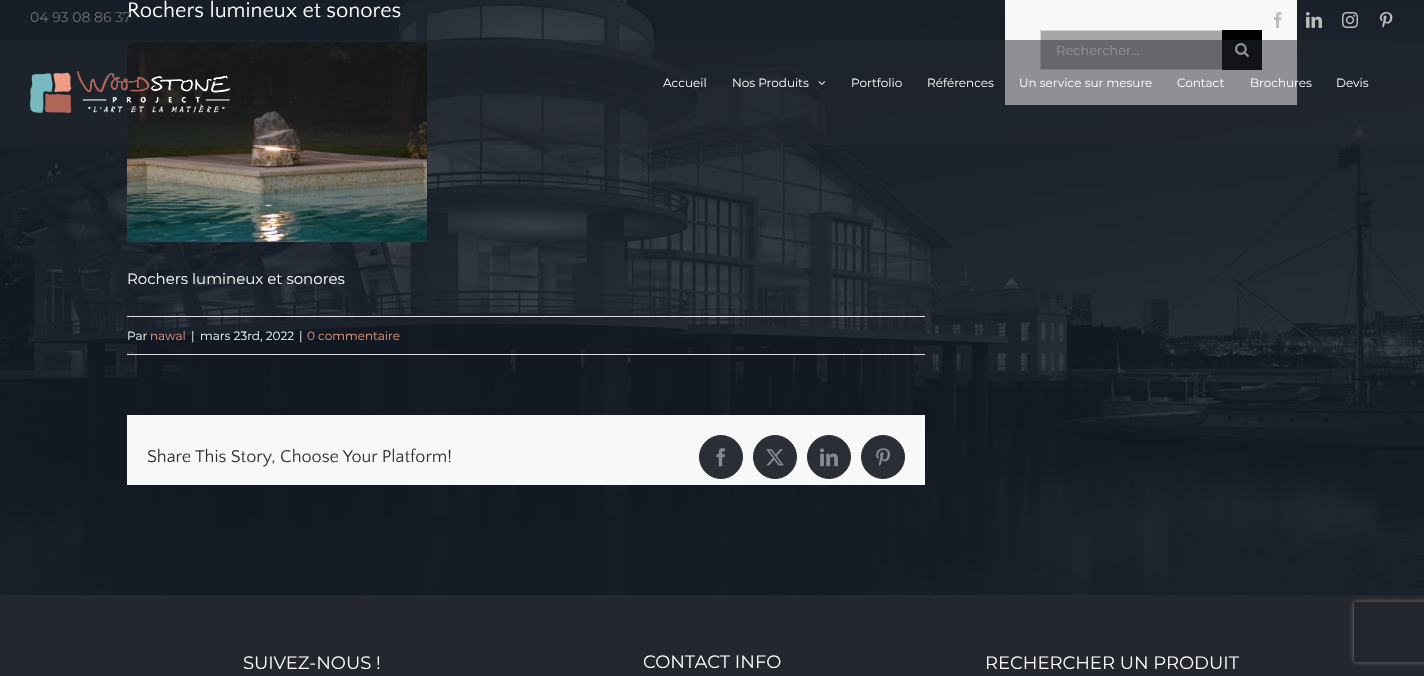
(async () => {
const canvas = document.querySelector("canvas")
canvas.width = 1424
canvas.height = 676
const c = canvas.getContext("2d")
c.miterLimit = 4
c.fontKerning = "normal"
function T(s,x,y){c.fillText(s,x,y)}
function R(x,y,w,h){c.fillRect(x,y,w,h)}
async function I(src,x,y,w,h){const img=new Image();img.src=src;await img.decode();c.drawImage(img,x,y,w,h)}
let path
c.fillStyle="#fff"
R(0,0,1424,676)
await I("1.png",0,0,1424,595)
c.font="22px Quattrocento Sans"
T("Rochers lumineux et sonores",127,17)
await I("2.png",127,42,300,200)
c.font="15px Montserrat"
T("Rochers lumineux et sonores",127,284)
c.fillStyle="#e0dede"
R(127,316,798,1)
R(127,354,798,1)
c.font="12px Montserrat"
c.fillStyle="#fff"
T("Par",127,340)
c.fillStyle="#ec9d84"
T("nawal",150,340)
c.fillStyle="#fff"
T("|",191,340)
T("mars 23rd, 2022",200,340)
T("|",299,340)
c.fillStyle="#ec9d84"
T("0 commentaire",307,340)
c.fillStyle="#f8f8f8"
R(127,415,798,70)
c.font="18px Quattrocento Sans"
c.fillStyle="#333"
T("Share This Story, Choose Your Platform!",147,462)
c.fillStyle="#2b2e35"
c.beginPath()
c.arc(721,457,21.5,0,7)
c.fill()
c.strokeStyle="#2b2e35"
c.stroke()
await I("3.png",716,448,9,19)
c.beginPath()
c.arc(775,457,21.5,0,7)
c.fill()
c.stroke()
await I("4.png",766,449,18,17)
c.beginPath()
c.arc(829,457,21.5,0,7)
c.fill()
c.stroke()
await I("5.png",820,448,18,19)
c.beginPath()
c.arc(883,457,21.5,0,7)
c.fill()
c.stroke()
await I("6.png",876,448,15,18)
c.fillStyle="#f8f8f8"
R(1005,0,292,105)
c.fillStyle="#a6a6a6"
R(1040,30,182,40)
c.fillStyle="#d3d3d3"
path = new Path2D("M1040 30h182v1h-181z")
c.fill(path)
path = new Path2D("M1222 70h-182l1-1h181z")
c.fill(path)
c.fillStyle="#ffffff80"
path = new Path2D("M1040 70v-40l1 1v38z")
c.fill(path)
c.font="13px Montserrat"
c.fillStyle="#fff"
T("Rechercher...",1056,55)
c.fillStyle="#000"
R(1222,30,40,40)
await I("7.png",1235,43,14,14)
c.font="14px Montserrat"
c.fillStyle="#747474"
T("04 93 08 86 37",30,22)
await I("8.png",1274,12,8,16)
await I("9.png",1306,12,16,16)
await I("10.png",1342,12,16,16)
await I("11.png",1379,12,14,16)
c.fillStyle="#24272d80"
R(0,40,1424,105)
await I("12.png",30,71,200,42)
c.font="12px Montserrat"
c.fillStyle="#fff"
T("Accueil",663,87)
T("Nos Produits",732,87)
await I("13.png",818,81,8,4)
T("Portfolio",851,87)
T("Références",927,87)
T("Un service sur mesure",1019,87)
T("Contact",1177,87)
T("Brochures",1250,87)
T("Devis",1336,87)
c.fillStyle="#24272d"
R(0,595,1424,81)
c.font="18px Montserrat"
c.fillStyle="#fff"
T("SUIVEZ-NOUS !",243,669)
T("CONTACT INFO",643,668)
T("RECHERCHER UN PRODUIT",985,669)
c.save()
path = new Path2D("M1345 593h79v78h-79zm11 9h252c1 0 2 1 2 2v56c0 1-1 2-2 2h-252c-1 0-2-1-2-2v-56c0-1 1-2 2-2z")
c.clip(path,"evenodd")
c.fillStyle="#808080"
c.filter="blur(2.5px)"
c.beginPath()
c.roundRect(1354,602,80,60,2)
c.fill()
c.filter="none"
c.restore()
})()
